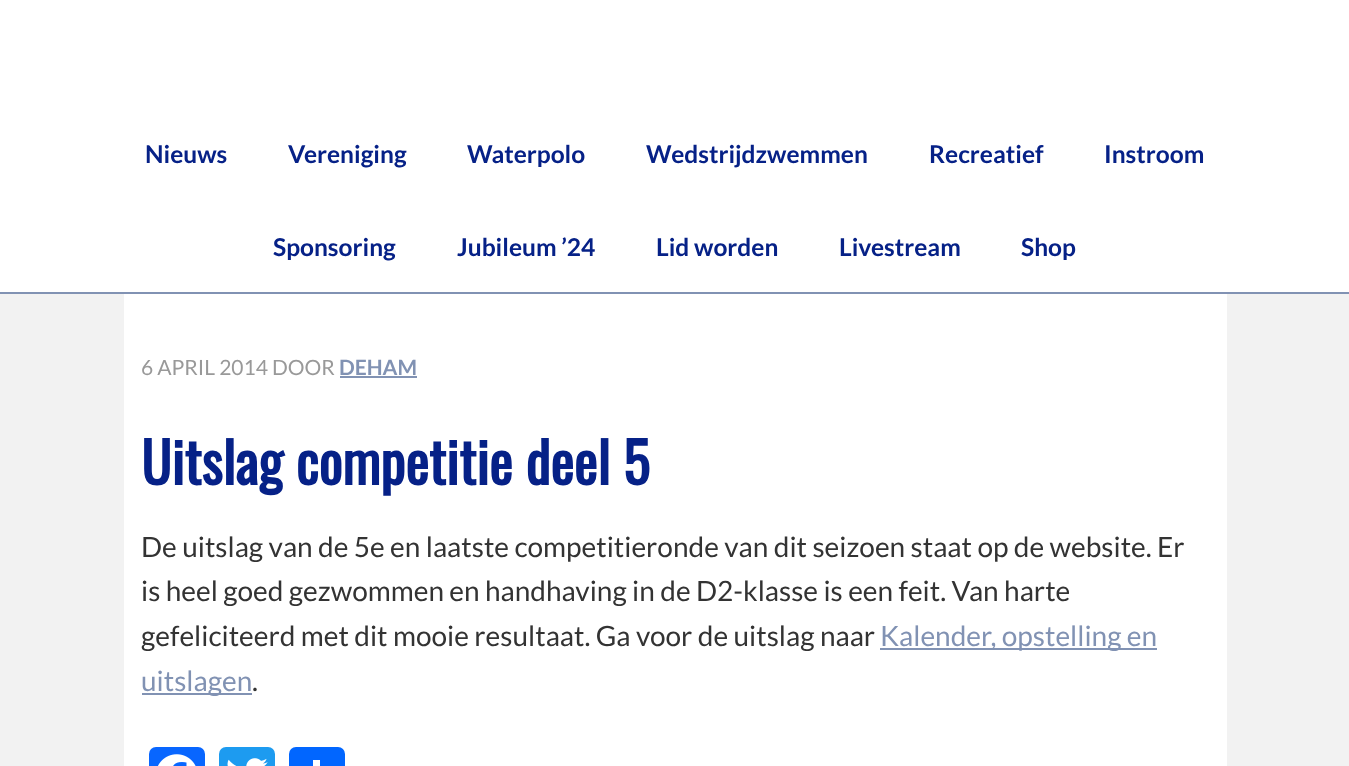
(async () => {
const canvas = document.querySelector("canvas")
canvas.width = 1349
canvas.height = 766
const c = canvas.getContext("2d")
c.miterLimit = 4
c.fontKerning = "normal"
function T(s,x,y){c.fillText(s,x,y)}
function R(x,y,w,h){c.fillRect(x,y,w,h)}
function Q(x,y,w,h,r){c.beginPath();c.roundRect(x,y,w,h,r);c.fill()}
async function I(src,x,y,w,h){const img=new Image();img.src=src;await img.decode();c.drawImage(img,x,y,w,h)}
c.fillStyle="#f2f2f2"
R(0,0,1349,766)
c.fillStyle="#fff"
R(0,0,1349,292)
c.fillStyle="#8192b3"
R(0,292,1349,2)
c.font="bold 24.5px Lato"
c.fillStyle="#062187"
T("Nieuws",145,163)
T("Vereniging",288,163)
T("Waterpolo",467,163)
T("Wedstrijdzwemmen",646,163)
T("Recreatief",929,163)
T("Instroom",1104,163)
T("Sponsoring",273,256)
T("Jubileum ’24",457,256)
T("Lid worden",656,256)
T("Livestream",839,256)
T("Shop",1021,256)
c.fillStyle="#fff"
R(124,294,1103,472)
c.font="21px Lato"
c.fillStyle="#999"
T("6 APRIL 2014 DOOR",141,375)
c.font="bold 21px Lato"
c.fillStyle="#8192b3"
T("DEHAM",339,375)
R(340,376,77,2)
c.font="bold 56px Oswald"
c.fillStyle="#062187"
T("Uitslag competitie deel 5",141,485)
c.font="28px Lato"
c.fillStyle="#333"
T("De uitslag van de 5e en laatste competitieronde van dit seizoen staat op de website. Er",141,557)
T("is heel goed gezwommen en handhaving in de D2-klasse is een feit. Van harte",141,601)
T("gefeliciteerd met dit mooie resultaat. Ga voor de uitslag naar",141,646)
c.fillStyle="#8192b3"
R(880,648,277,2)
T("Kalender, opstelling en",880,646)
R(142,693,110,2)
T("uitslagen",141,691)
c.fillStyle="#333"
T(".",252,691)
c.fillStyle="#0866ff"
Q(149,747,56,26,7)
await I("1.png",158,754,38,12)
c.fillStyle="#1d9bf0"
Q(219,747,56,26,7)
await I("2.png",227,758,41,8)
c.fillStyle="#0166ff"
Q(289,747,56,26,7)
c.fillStyle="#fff"
R(313,760,7,6)
})()
